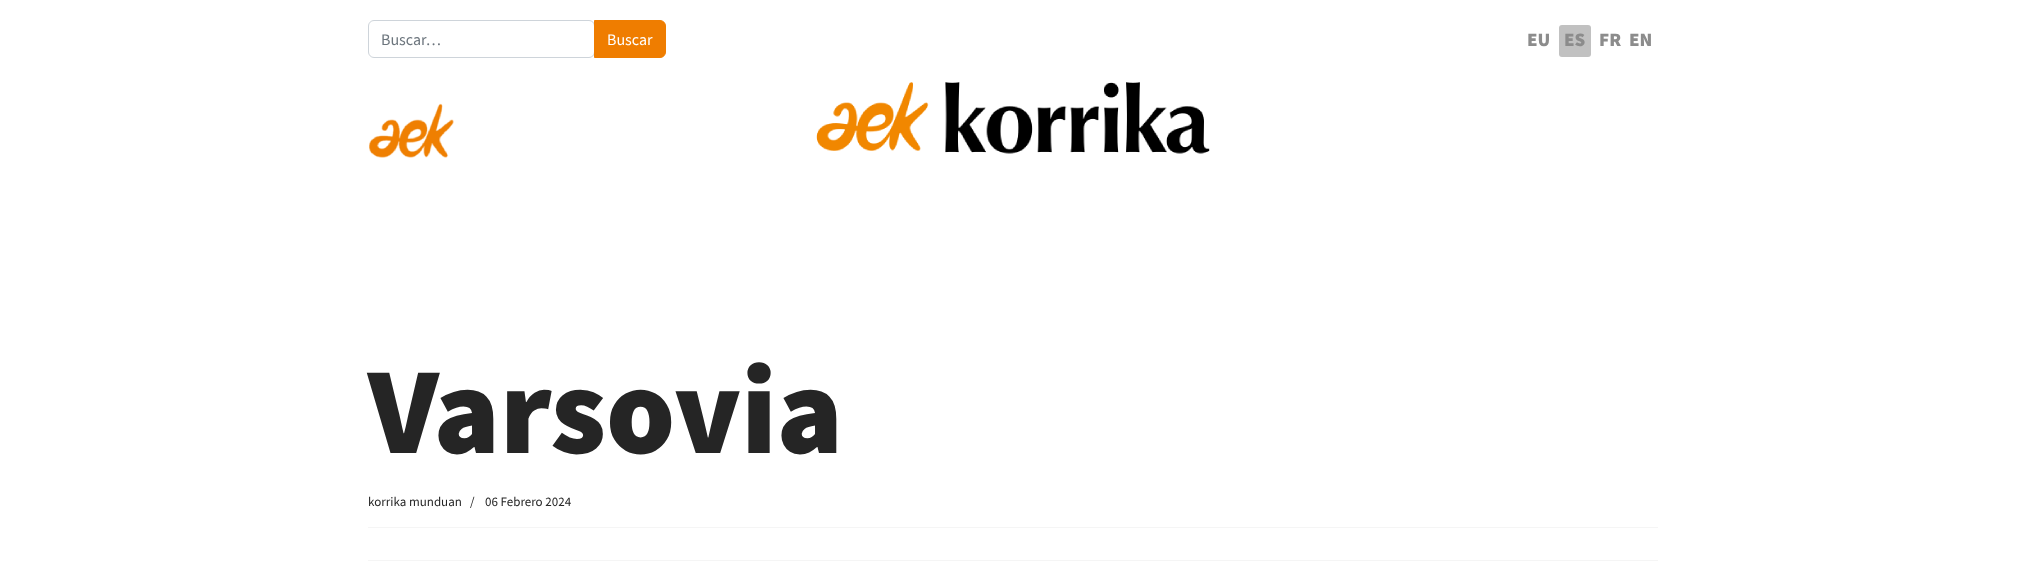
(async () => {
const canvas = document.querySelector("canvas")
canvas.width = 2026
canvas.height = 563
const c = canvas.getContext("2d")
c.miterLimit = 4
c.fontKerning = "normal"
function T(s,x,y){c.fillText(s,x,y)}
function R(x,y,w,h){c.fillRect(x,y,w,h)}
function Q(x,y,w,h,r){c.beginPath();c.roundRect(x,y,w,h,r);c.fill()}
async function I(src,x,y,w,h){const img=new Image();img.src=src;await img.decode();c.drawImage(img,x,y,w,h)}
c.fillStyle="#fff"
R(0,0,2026,563)
c.beginPath()
c.roundRect(368.5,20.5,226,37,5.5)
c.strokeStyle="#ced4da"
c.stroke()
c.font="16px Source Sans Pro"
c.fillStyle="#6c757d"
T("Buscar…",381,45)
c.fillStyle="#ef7d00"
c.beginPath()
c.roundRect(594.5,20.5,71,37,[0,5.5,5.5,0])
c.fill()
c.strokeStyle="#ef7d00"
c.stroke()
c.fillStyle="#fff"
T("Buscar",607,45)
c.font="900 19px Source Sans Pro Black"
c.fillStyle="#8c8c8c"
T("EU",1527,46)
c.fillStyle="#c1c1c1"
Q(1559,25,32,32,3)
c.fillStyle="#8c8c8c"
T("ES",1564,46)
T("FR",1599,46)
T("EN",1629,46)
await I("1.png",369,103,85,55)
await I("2.png",816,82,394,72)
c.font="900 123.5px Source Sans Pro Black"
c.fillStyle="#252525"
T("Varsovia",368,453)
c.font="13px Source Sans Pro"
T("korrika munduan",368,506)
T("/",470,506)
T("06 Febrero 2024",485,506)
c.fillStyle="#f5f5f5"
R(368,527,1290,1)
R(368,560,1290,1)
})()
